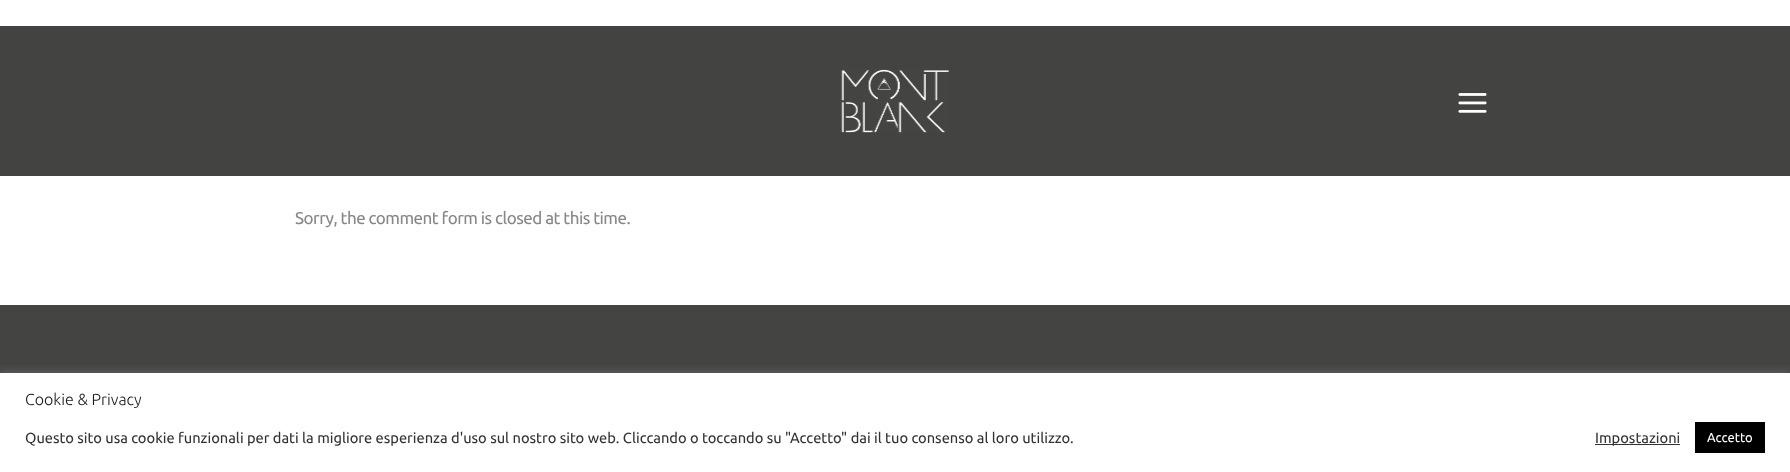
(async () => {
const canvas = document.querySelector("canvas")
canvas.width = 1790
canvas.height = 472
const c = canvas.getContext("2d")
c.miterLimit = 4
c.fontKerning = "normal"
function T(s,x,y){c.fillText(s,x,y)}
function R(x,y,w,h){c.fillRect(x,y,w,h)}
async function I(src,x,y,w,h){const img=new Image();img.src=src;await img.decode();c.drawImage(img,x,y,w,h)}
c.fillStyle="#fff"
R(0,0,1790,472)
c.fillStyle="#434342"
R(0,26,1790,150)
await I("1.png",841,69,108,64)
await I("2.png",1458,93,29,20)
c.letterSpacing="-0.5px"
c.font="17px Ubuntu"
c.fillStyle="#878787"
T("Sorry, the comment form is closed at this time.",295,224)
c.fillStyle="#444442"
R(0,305,1790,68)
c.fillStyle="#acabab4d"
c.filter="blur(5px)"
c.beginPath()
c.rect(0,372,1790,99)
c.fill()
c.filter="none"
c.fillStyle="#fff"
R(0,373,1790,99)
c.letterSpacing="0px"
c.font="300 16px Ubuntu"
c.fillStyle="#1f1a15"
T("Cookie & Privacy",25,405)
c.font="14.67px Ubuntu"
c.fillStyle="#333"
T("Questo sito usa cookie funzionali per dati la migliore esperienza d'uso sul nostro sito web. Cliccando o toccando su \"Accetto\" dai il tuo consenso al loro utilizzo.",25,443)
R(1595,444,85,1)
T("Impostazioni",1595,443)
c.fillStyle="#000"
R(1695,422,70,31)
c.font="13px Ubuntu"
c.fillStyle="#fff"
T("Accetto",1707,442)
})()
